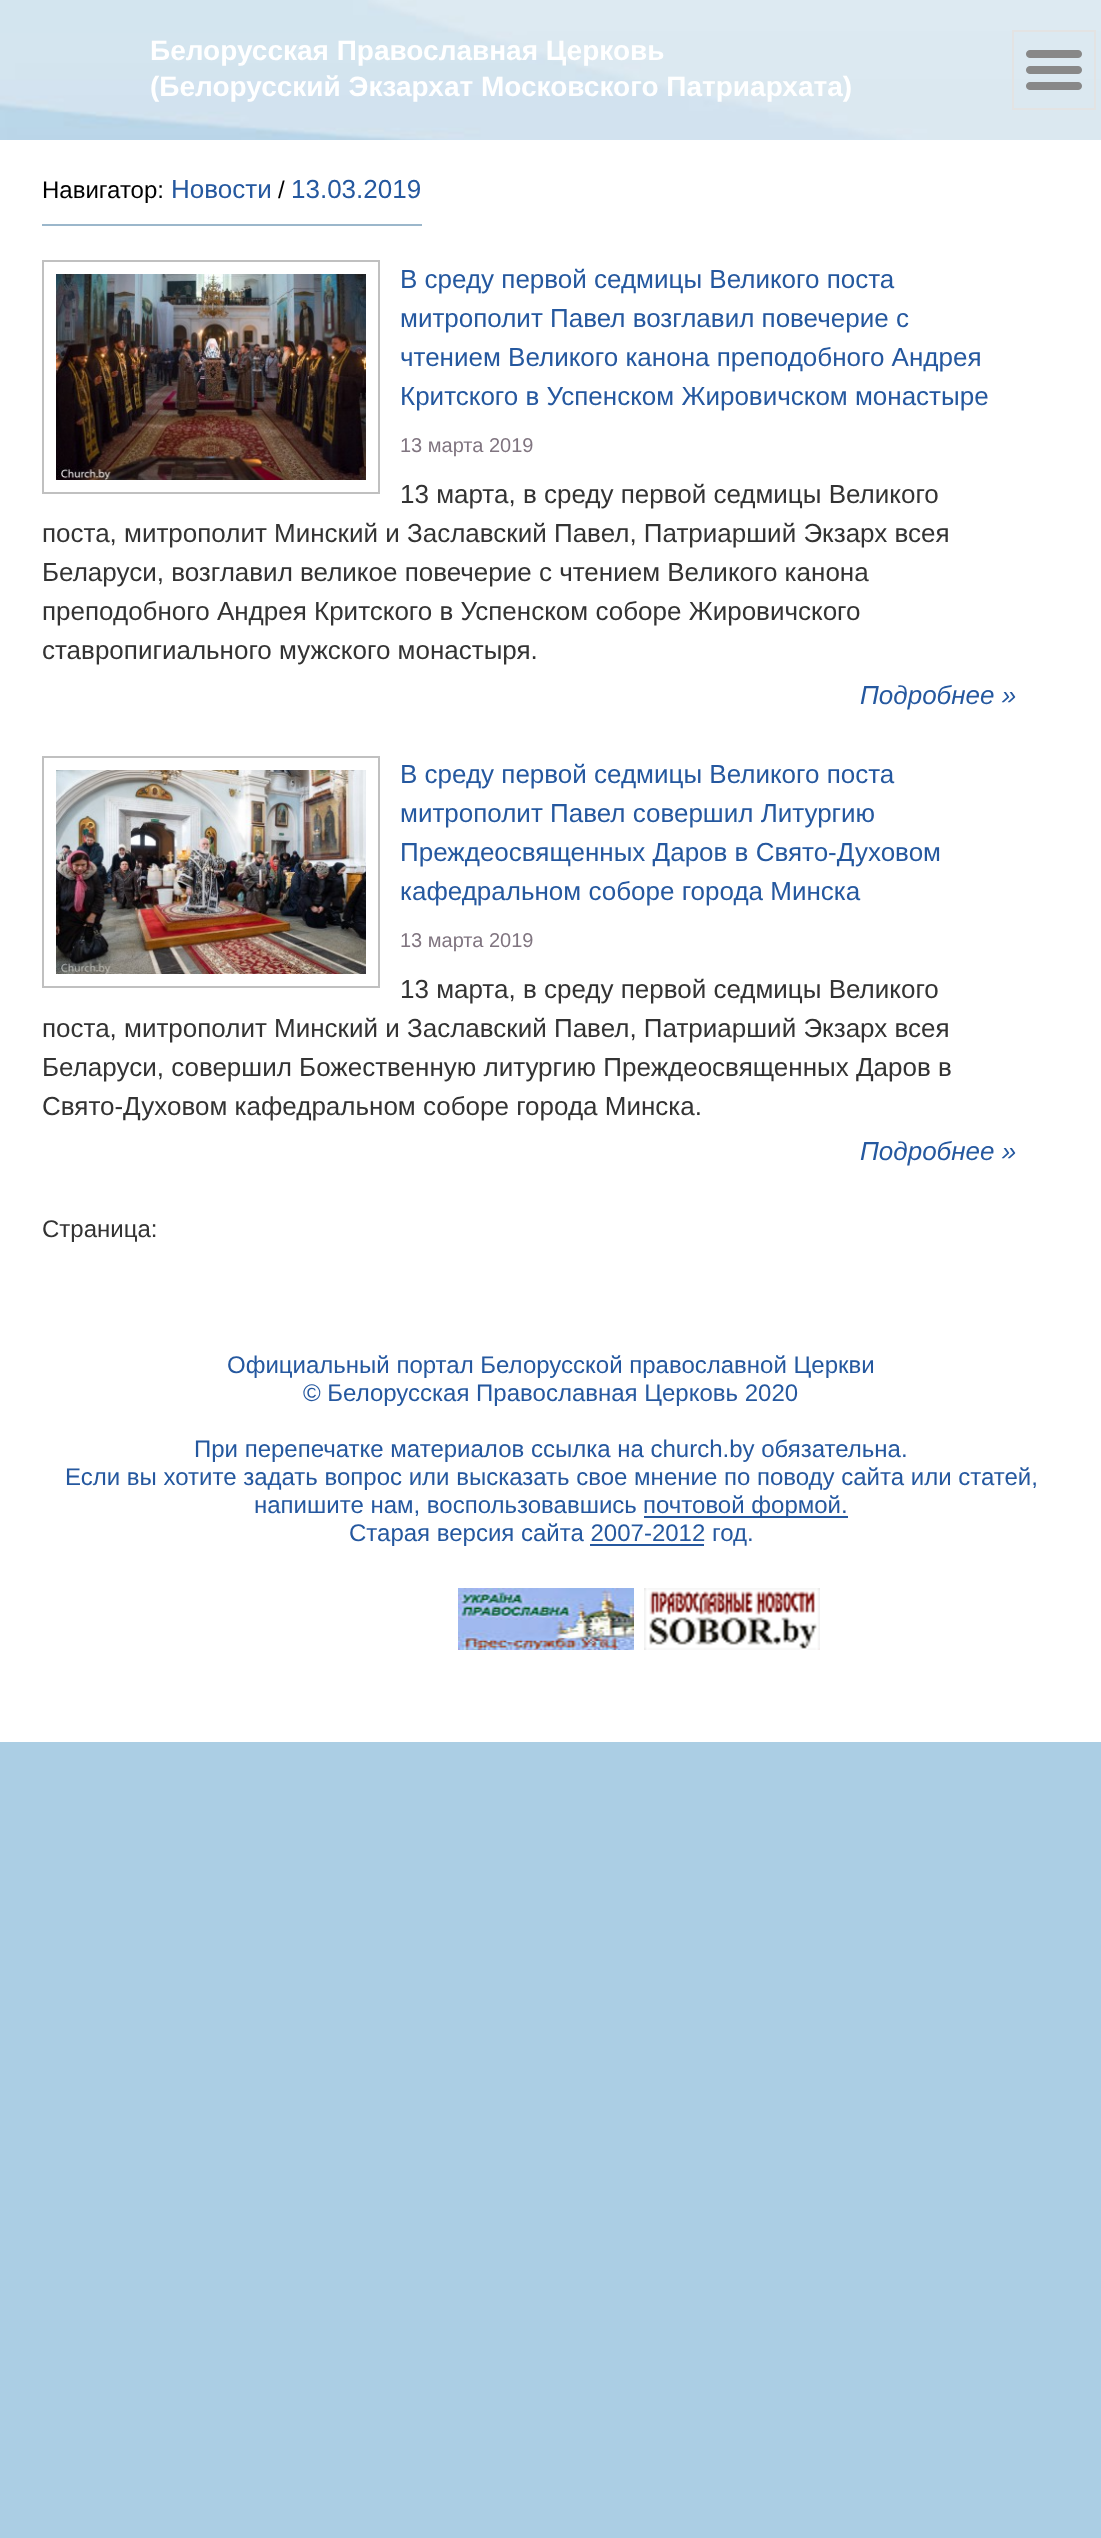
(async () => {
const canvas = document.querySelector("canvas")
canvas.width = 1101
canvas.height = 2538
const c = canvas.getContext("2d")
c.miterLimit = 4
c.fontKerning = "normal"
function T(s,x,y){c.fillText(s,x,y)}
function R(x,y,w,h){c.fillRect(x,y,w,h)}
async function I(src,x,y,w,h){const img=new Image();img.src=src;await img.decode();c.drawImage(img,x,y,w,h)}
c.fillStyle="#abcee4"
R(0,0,1101,2538)
await I("1.png",0,0,1101,140)
c.font="bold 28px Liberation Sans"
c.fillStyle="#fff"
T("Белорусская Православная Церковь",150,60)
T("(Белорусский Экзархат Московского Патриархата)",150,96)
c.strokeStyle="#e3e3e3"
c.lineWidth=2
c.strokeRect(1013,31,82,78)
await I("2.png",1026,50,56,40)
R(0,140,1101,1602)
c.font="24px Liberation Sans"
c.fillStyle="#000"
T("Навигатор:",42,198)
c.fillStyle="#9bb7cb"
R(42,224,380,2)
c.font="26px Liberation Sans"
c.fillStyle="#25589f"
T("Новости",171,198)
c.font="24px Liberation Sans"
c.fillStyle="#000"
T("/",278,198)
c.font="26px Liberation Sans"
c.fillStyle="#25589f"
T("13.03.2019",291,198)
c.strokeStyle="#c0c0c0"
c.strokeRect(43,261,336,232)
await I("3.png",56,274,310,206)
T("В среду первой седмицы Великого поста",400,288)
T("митрополит Павел возглавил повечерие с",400,327)
T("чтением Великого канона преподобного Андрея",400,366)
T("Критского в Успенском Жировичском монастыре",400,405)
c.font="20px Liberation Sans"
c.fillStyle="#807580"
T("13 марта 2019",400,452)
c.font="26px Liberation Sans"
c.fillStyle="#333"
T("13 марта, в среду первой седмицы Великого",400,503)
T("поста, митрополит Минский и Заславский Павел, Патриарший Экзарх всея",42,542)
T("Беларуси, возглавил великое повечерие с чтением Великого канона",42,581)
T("преподобного Андрея Критского в Успенском соборе Жировичского",42,620)
T("ставропигиального мужского монастыря.",42,659)
c.font="italic 26px Liberation Sans"
c.fillStyle="#25589f"
T("Подробнее »",860,704)
c.strokeRect(43,757,336,230)
await I("4.png",56,770,310,204)
c.font="26px Liberation Sans"
T("В среду первой седмицы Великого поста",400,783)
T("митрополит Павел совершил Литургию",400,822)
T("Преждеосвященных Даров в Свято-Духовом",400,861)
T("кафедральном соборе города Минска",400,900)
c.font="20px Liberation Sans"
c.fillStyle="#807580"
T("13 марта 2019",400,947)
c.font="26px Liberation Sans"
c.fillStyle="#333"
T("13 марта, в среду первой седмицы Великого",400,998)
T("поста, митрополит Минский и Заславский Павел, Патриарший Экзарх всея",42,1037)
T("Беларуси, совершил Божественную литургию Преждеосвященных Даров в",42,1076)
T("Свято-Духовом кафедральном соборе города Минска.",42,1115)
c.font="italic 26px Liberation Sans"
c.fillStyle="#25589f"
T("Подробнее »",860,1160)
c.font="24px Liberation Sans"
c.fillStyle="#333"
T("Страница:",42,1237)
c.fillStyle="#25589f"
T("Официальный портал Белорусской православной Церкви",227,1373)
T("© Белорусская Православная Церковь 2020",303,1401)
T("При перепечатке материалов ссылка на church.by обязательна.",194,1457)
T("Если вы хотите задать вопрос или высказать свое мнение по поводу сайта или статей,",65,1485)
T("напишите нам, воспользовавшись",254,1513)
R(644,1516,204,2)
T("почтовой формой.",643,1513)
T("Старая версия сайта 2007-2012 год.",349,1541)
R(590,1544,114,2)
await I("5.png",458,1588,176,62)
await I("6.png",644,1588,176,62)
})()
